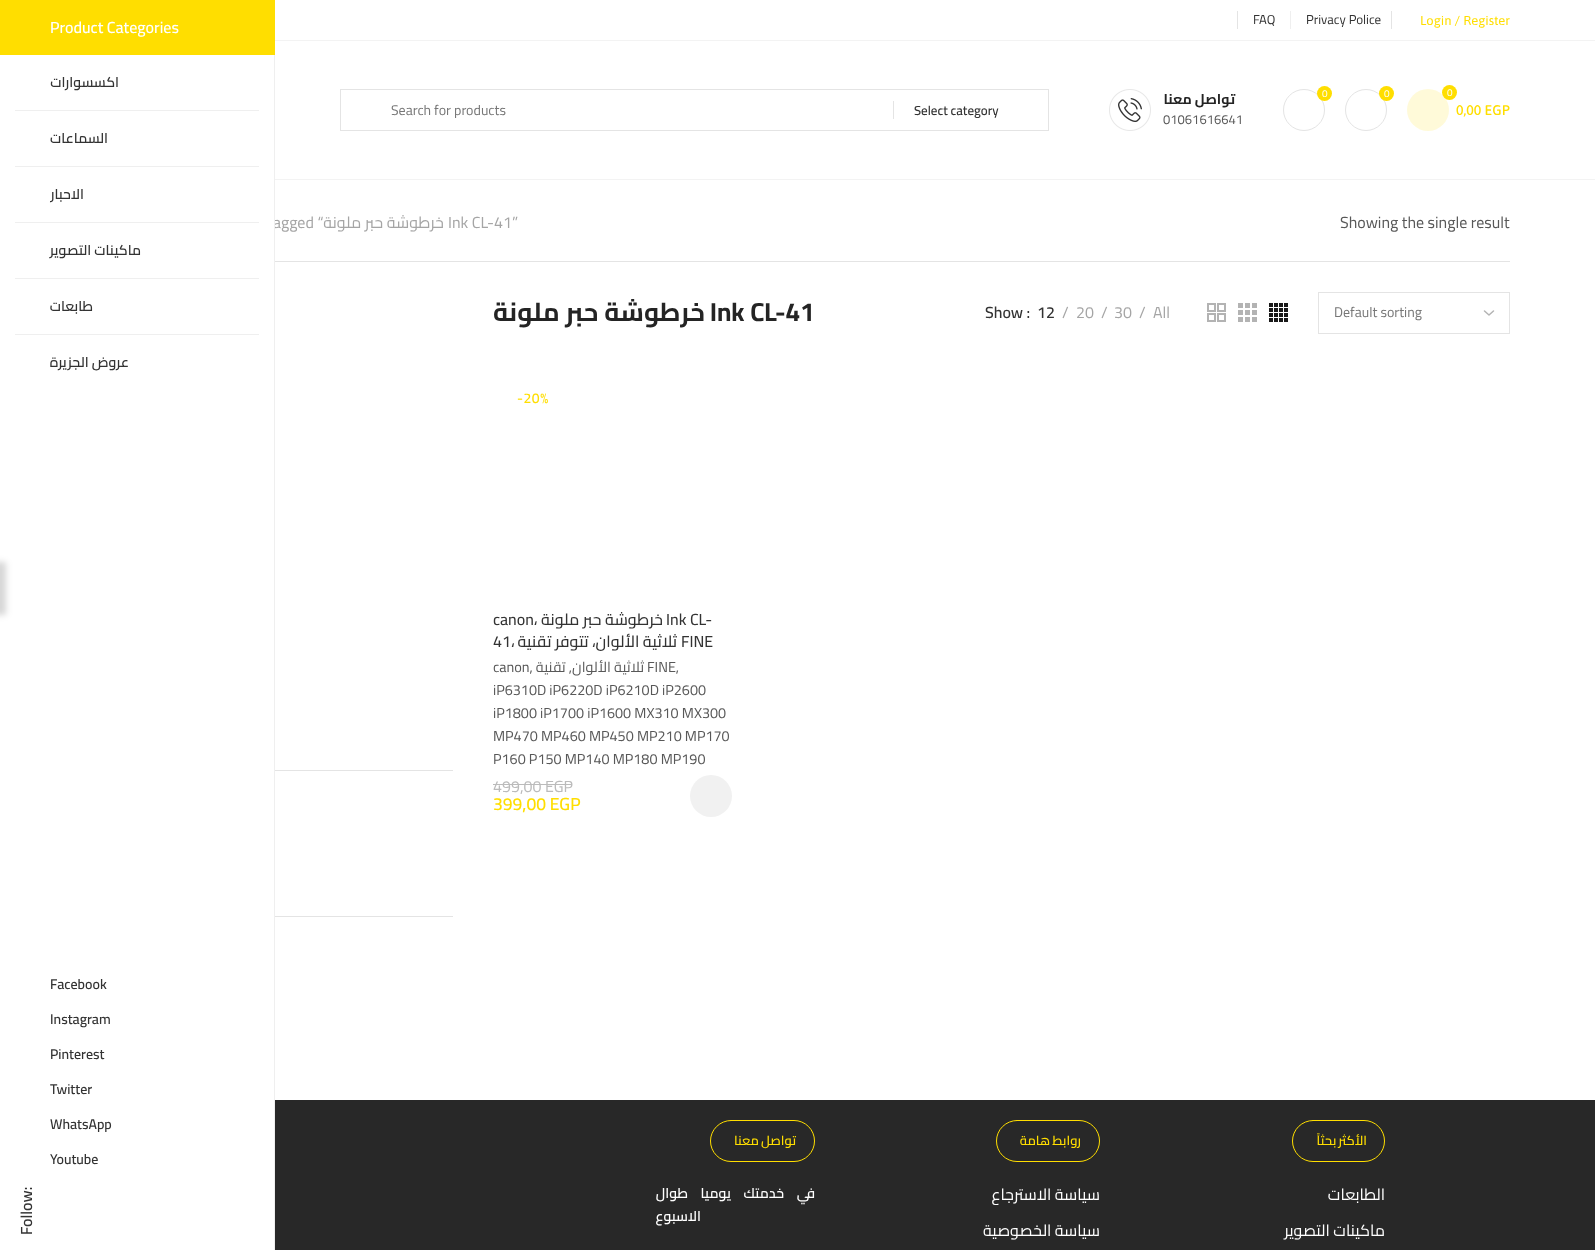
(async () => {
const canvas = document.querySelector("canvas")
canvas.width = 1595
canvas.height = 1250
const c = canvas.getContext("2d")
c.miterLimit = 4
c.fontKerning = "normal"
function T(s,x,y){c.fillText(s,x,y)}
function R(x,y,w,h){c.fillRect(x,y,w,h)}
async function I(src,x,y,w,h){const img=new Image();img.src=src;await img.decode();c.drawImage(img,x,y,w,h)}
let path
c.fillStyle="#fff"
R(0,0,1595,1250)
c.fillStyle="#00000029"
c.filter="blur(3px)"
c.beginPath()
c.rect(-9,562,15,53)
c.fill()
c.filter="none"
c.font="16px Cairo"
c.fillStyle="#a5a5a5"
T("agged “",273,228)
c.fillStyle="#fff"
R(273,224,1,3)
c.fillStyle="#efefef"
R(274,55,1,1195)
c.fillStyle="#ffde00"
R(0,0,275,55)
c.font="600 16px Cairo"
c.fillStyle="#fff"
T("Product Categories",50,33)
c.direction="rtl"
c.font="600 14px Cairo"
c.fillStyle="#333"
T("اكسسوارات",119,87)
c.fillStyle="#efefef"
R(15,110,244,1)
c.fillStyle="#333"
T("السماعات",108,143)
c.fillStyle="#efefef"
R(15,166,244,1)
c.fillStyle="#333"
T("الاحبار",84,199)
c.fillStyle="#efefef"
R(15,222,244,1)
c.fillStyle="#333"
T("ماكينات التصوير",141,255)
c.fillStyle="#efefef"
R(15,278,244,1)
c.fillStyle="#333"
T("طابعات",93,311)
c.fillStyle="#efefef"
R(15,334,244,1)
c.fillStyle="#333"
T("عروض الجزيرة",129,367)
c.direction="ltr"
T("Facebook",50,989)
T("Instagram",50,1024)
T("Pinterest",50,1059)
T("Twitter",50,1094)
T("WhatsApp",50,1129)
T("Youtube",50,1164)
c.font="600 16px Cairo"
c.save()
c.translate(32,1235)
c.rotate(-90 * Math.PI / 180)
c.fillText("Follow:",0,0)
c.restore()
c.fillStyle="#f3f3f3"
R(275,40,1320,1)
c.fillStyle="#e4e4e4"
R(1237,11,1,18)
c.font="13px Cairo"
c.fillStyle="#333"
T("FAQ",1253,24)
c.fillStyle="#efefef"
R(1290,11,1,18)
c.fillStyle="#333"
T("Privacy Police",1306,24)
c.fillStyle="#e4e4e4"
R(1391,11,1,18)
c.font="13px Asap"
c.fillStyle="#ffde00"
T("Login / Register",1420,25)
c.fillStyle="#f3f3f3"
R(275,179,1320,1)
c.strokeStyle="#e4e4e4"
c.strokeRect(340.5,89.5,708,41)
c.font="14px Cairo"
c.fillStyle="#777"
T("Search for products",391,115)
c.fillStyle="#e4e4e4"
R(893,101,1,18)
c.font="600 13px Cairo"
c.fillStyle="#333"
T("Select category",914,115)
await I("1.png",1109,89,42,42)
c.direction="rtl"
c.font="bold 14px Cairo"
c.fillStyle="#242424"
T("تواصل معنا",1235,104)
c.direction="ltr"
c.font="13px Cairo"
c.fillStyle="#585858"
T("01061616641",1163,124)
c.beginPath()
c.arc(1304,110,20.5,0,7)
c.stroke()
c.fillStyle="#ffde00"
c.beginPath()
c.arc(1324.5,93.5,7.5,0,7)
c.fill()
c.font="10px Cairo"
c.fillStyle="#fff"
T("0",1322,97)
c.beginPath()
c.arc(1366,110,20.5,0,7)
c.stroke()
c.fillStyle="#ffde00"
c.beginPath()
c.arc(1386.5,93.5,7.5,0,7)
c.fill()
c.fillStyle="#fff"
T("0",1384,97)
c.fillStyle="#ffde00"
c.beginPath()
c.arc(1449.5,92.5,7.5,0,7)
c.fill()
c.fillStyle="#fff"
T("0",1447,96)
c.fillStyle="#ffde0026"
c.beginPath()
c.arc(1428,110,21,0,7)
c.fill()
c.font="500 14px Asap"
c.fillStyle="#ffde00"
T("0,00 EGP",1456,115)
c.fillStyle="#e4e4e4"
R(275,261,1235,1)
c.direction="rtl"
c.font="16px Cairo"
c.fillStyle="#a5a5a5"
T("خرطوشة حبر ملونة",444,228)
c.direction="ltr"
T("Ink CL-41”",448,228)
c.fillStyle="#585858"
T("Showing the single result",1340,228)
c.direction="rtl"
c.font="bold 26px Cairo"
c.fillStyle="#242424"
T("خرطوشة حبر ملونة",705,321)
c.direction="ltr"
T("Ink CL-41",710,321)
c.font="600 16px Cairo"
c.fillStyle="#333"
T("Show :",985,318)
T("12",1037,318)
c.font="16px Cairo"
c.fillStyle="#a5a5a5"
T("/",1062,318)
T("20",1076,318)
T("/",1101,318)
T("30",1114,318)
T("/",1139,318)
T("All",1153,318)
await I("2.png",1207,303,19,19)
await I("3.png",1238,303,19,19)
await I("4.png",1269,303,19,19)
path = new Path2D("M1484.5 311l4.5 4l4.5-4")
c.strokeStyle="#b3b3b3"
c.lineWidth=1.5
c.lineCap="round"
c.lineJoin="round"
c.stroke(path)
c.strokeStyle="#e4e4e4"
c.lineWidth=1
c.lineJoin="miter"
c.strokeRect(1318.5,292.5,191,41)
c.font="14px Cairo"
c.fillStyle="#777"
T("Default sorting",1334,317)
c.letterSpacing="0.5px"
c.font="600 14px Cairo"
c.fillStyle="#ffde00"
T("-20%",517,403)
c.letterSpacing="0px"
c.font="500 16px Cairo"
c.fillStyle="#333"
T("canon،",493,625)
c.direction="rtl"
T("خرطوشة حبر ملونة",663,625)
c.direction="ltr"
T("Ink CL-",666,625)
T("41،",493,647)
c.direction="rtl"
T("ثلاثية الألوان، تتوفر تقنية",677,647)
c.direction="ltr"
T("FINE",681,647)
c.font="14.4px Cairo"
c.fillStyle="#585858"
T("canon,",493,672)
c.direction="rtl"
T("ثلاثية الألوان, تقنية",644,672)
c.direction="ltr"
T("FINE,",647,672)
T("iP6310D iP6220D iP6210D iP2600",493,695)
T("iP1800 iP1700 iP1600 MX310 MX300",493,718)
T("MP470 MP460 MP450 MP210 MP170",493,741)
T("P160 P150 MP140 MP180 MP190",493,764)
c.font="16px Cairo"
c.fillStyle="#bbb"
T("499,00 EGP",493,792)
R(493,784,79,1)
c.font="600 17.5px Cairo"
c.fillStyle="#ffde00"
T("399,00 EGP",493,810)
c.fillStyle="#f1f1f1"
c.beginPath()
c.arc(711,796,21,0,7)
c.fill()
c.fillStyle="#e4e4e4"
R(275,770,178,1)
R(275,916,178,1)
c.fillStyle="#282828"
R(275,1100,1320,150)
c.beginPath()
c.roundRect(710.5,1120.5,104,41,20.5)
c.strokeStyle="#ffde00"
c.stroke()
c.letterSpacing="0.25px"
c.wordSpacing="-1px"
c.direction="rtl"
c.font="600 13px Cairo"
c.fillStyle="#ffde00"
T("تواصل معنا",796,1145)
c.letterSpacing="0px"
c.wordSpacing="9.5px"
c.font="600 14px Cairo"
c.fillStyle="#fff"
T("في خدمتك يوميا طوال",815,1198)
c.wordSpacing="0px"
T("الاسبوع",701,1221)
c.beginPath()
c.roundRect(996.5,1120.5,103,41,20.5)
c.stroke()
c.letterSpacing="0.25px"
c.wordSpacing="-1px"
c.font="600 13px Cairo"
c.fillStyle="#ffde00"
T("روابط هامة",1081,1145)
c.letterSpacing="0px"
c.wordSpacing="0px"
c.font="16px Cairo"
c.fillStyle="#fff"
T("سياسة الاسترجاع",1100,1200)
T("سياسة الخصوصية",1100,1236)
c.beginPath()
c.roundRect(1292.5,1120.5,92,41,20.5)
c.stroke()
c.letterSpacing="0.25px"
c.wordSpacing="-1px"
c.font="600 13px Cairo"
c.fillStyle="#ffde00"
T("الأكثر بحثاً",1367,1145)
c.letterSpacing="0px"
c.wordSpacing="0px"
c.font="16px Cairo"
c.fillStyle="#fff"
T("الطابعات",1385,1200)
T("ماكينات التصوير",1385,1236)
})()
